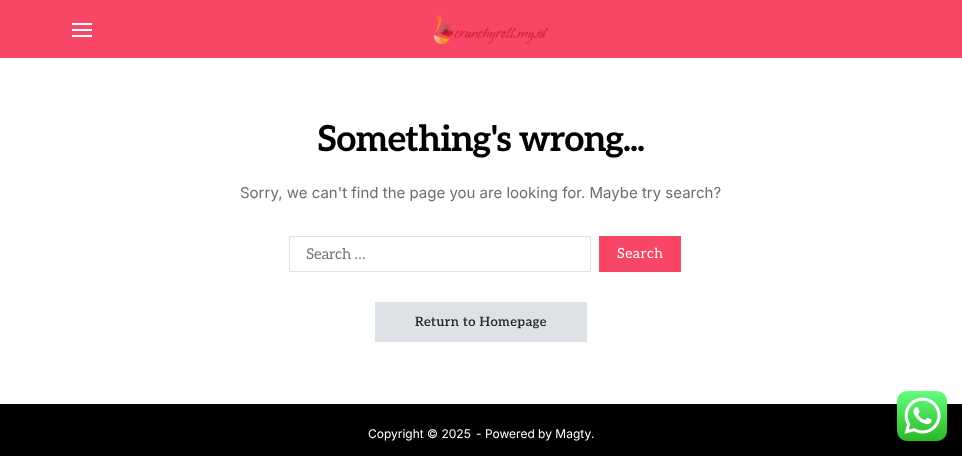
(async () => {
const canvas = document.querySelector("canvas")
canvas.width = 962
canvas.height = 456
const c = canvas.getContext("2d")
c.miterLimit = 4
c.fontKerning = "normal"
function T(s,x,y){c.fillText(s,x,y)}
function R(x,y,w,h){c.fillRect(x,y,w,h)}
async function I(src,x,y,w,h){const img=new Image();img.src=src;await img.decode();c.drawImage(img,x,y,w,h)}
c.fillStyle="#fff"
R(0,0,962,456)
c.fillStyle="#f84666"
R(0,0,962,58)
c.fillStyle="#fff"
R(72,23,20,2)
R(72,29,20,2)
R(72,35,20,2)
await I("1.png",434,14,114,30)
c.letterSpacing="-1px"
c.font="bold 36px Aleo"
c.fillStyle="#020202"
T("Something's wrong...",317,151)
c.letterSpacing="0px"
c.font="15px Inter"
c.fillStyle="#6d6d6d"
T("Sorry, we can't find the page you are looking for. Maybe try search?",240,198)
c.strokeStyle="#dee2e6"
c.strokeRect(289.5,236.5,301,35)
c.letterSpacing="-0.25px"
c.font="15px Aleo"
c.fillStyle="#757575"
T("Search …",306,259)
c.fillStyle="#f84666"
R(599,236,82,36)
c.letterSpacing="0.5px"
c.font="14px Aleo"
c.fillStyle="#fff"
T("Search",617,258)
c.fillStyle="#dee2e6"
R(375,302,212,40)
c.letterSpacing="0.4px"
c.font="600 13px Aleo"
c.fillStyle="#282828"
T("Return to Homepage",415,326)
c.fillStyle="#000"
R(0,404,962,52)
c.letterSpacing="0px"
c.font="12px Inter"
c.fillStyle="#fff"
T("Copyright © 2025",368,438)
T("- Powered by Magty",476,438)
T(".",591,438)
await I("2.png",897,391,50,50)
})()
